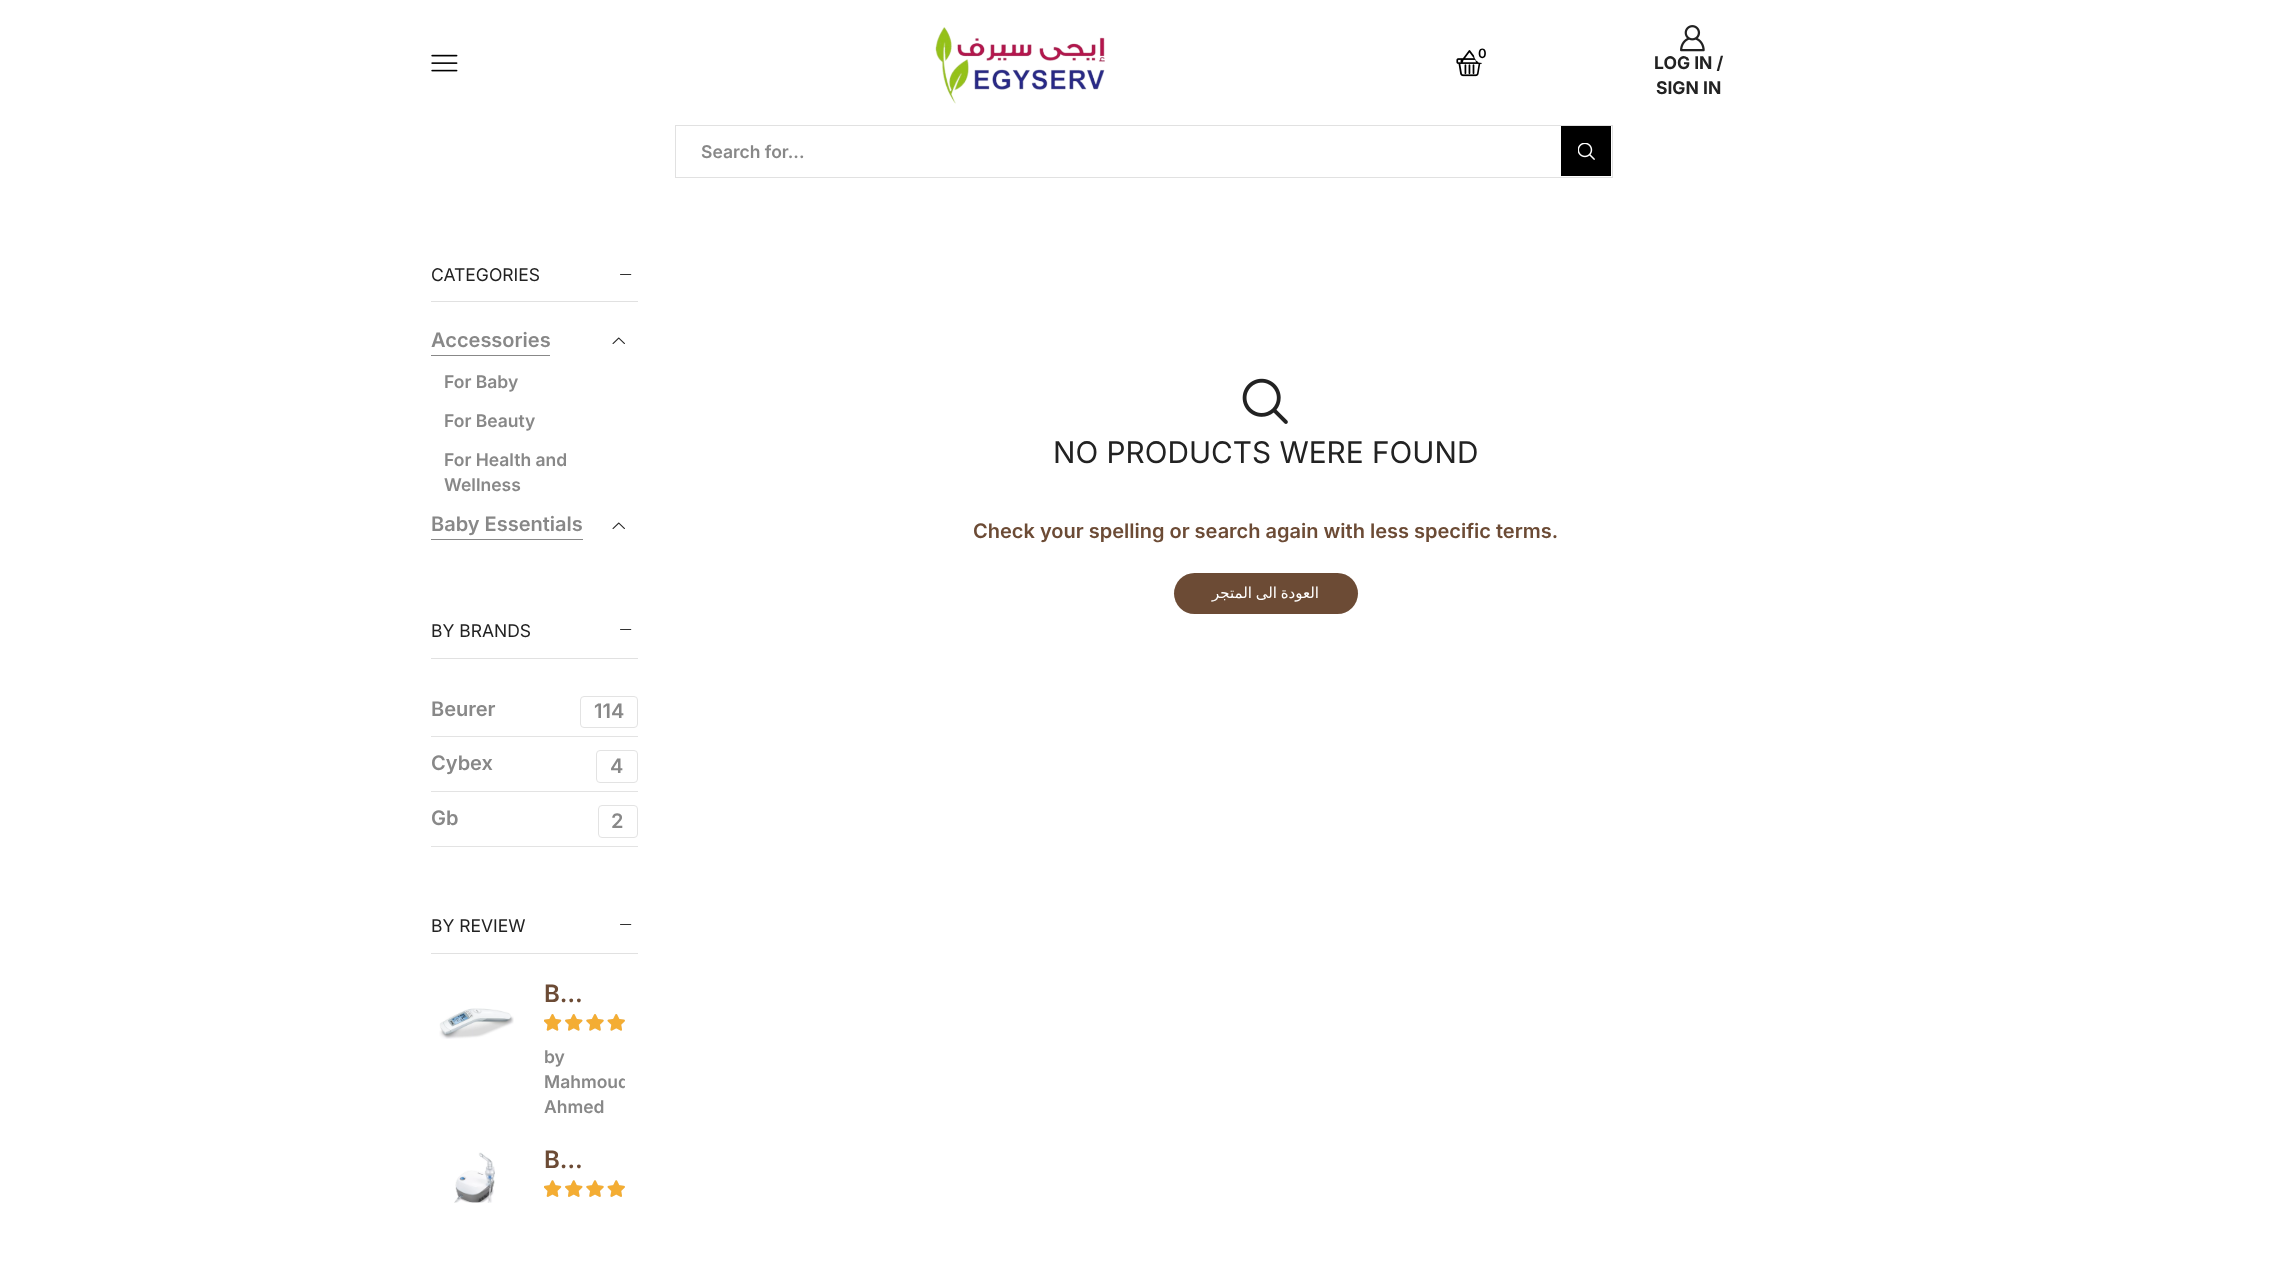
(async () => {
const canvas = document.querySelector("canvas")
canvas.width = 2287
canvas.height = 1269
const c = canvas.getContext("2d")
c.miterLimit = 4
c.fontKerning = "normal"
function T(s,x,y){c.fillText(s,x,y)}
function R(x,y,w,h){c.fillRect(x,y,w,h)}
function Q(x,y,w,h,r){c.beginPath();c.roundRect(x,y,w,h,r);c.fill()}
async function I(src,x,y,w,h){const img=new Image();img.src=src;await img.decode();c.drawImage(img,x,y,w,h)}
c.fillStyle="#fff"
R(0,0,2287,1269)
await I("1.png",431,54,27,18)
await I("2.png",935,27,170,77)
await I("3.png",1456,50,27,27)
Q(1474,45,16,18,8)
c.font="600 13px Inter"
c.fillStyle="#000"
T("0",1478,58)
await I("4.png",1680,25,25,27)
c.font="bold 17.5px Inter"
c.fillStyle="#222"
T("LOG IN /",1654,69)
T("SIGN IN",1656,94)
c.strokeStyle="#e1e1e1"
c.strokeRect(675.5,125.5,937,52)
c.font="600 17.5px Inter"
c.fillStyle="#888"
T("Search for...",701,158)
c.fillStyle="#000"
R(1561,126,50,50)
await I("5.png",1578,143,17,17)
c.fillStyle="#e1e1e1"
R(431,301,207,1)
c.font="17.5px Inter"
c.fillStyle="#222"
T("CATEGORIES",431,281)
await I("6.png",620,274,12,1)
c.font="600 20px Inter"
c.fillStyle="#888"
T("Accessories",431,347)
R(431,355,119,1)
await I("7.png",612,337,13,7)
c.font="600 17.5px Inter"
T("For Baby",444,388)
T("For Beauty",444,427)
T("For Health and",444,466)
T("Wellness",444,491)
c.font="600 20px Inter"
T("Baby Essentials",431,531)
R(431,539,152,1)
await I("7.png",612,522,13,7)
c.fillStyle="#e1e1e1"
R(431,658,207,1)
c.font="17.5px Inter"
c.fillStyle="#222"
T("BY BRANDS",431,637)
await I("6.png",620,629,12,1)
c.fillStyle="#e3e3e3"
R(431,736,207,1)
c.font="600 20px Inter"
c.fillStyle="#888"
T("Beurer",431,716)
c.beginPath()
c.roundRect(580.5,696.5,57,31,3.5)
c.strokeStyle="#e3e3e3"
c.stroke()
T("114",594,718)
c.fillStyle="#e3e3e3"
R(431,791,207,1)
c.fillStyle="#888"
T("Cybex",431,770)
c.beginPath()
c.roundRect(596.5,750.5,41,32,3.5)
c.stroke()
T("4",610,773)
c.fillStyle="#e3e3e3"
R(431,846,207,1)
c.fillStyle="#888"
T("Gb",431,825)
c.beginPath()
c.roundRect(598.5,805.5,39,32,3.5)
c.stroke()
T("2",611,828)
c.fillStyle="#e1e1e1"
R(431,953,207,1)
c.font="17.5px Inter"
c.fillStyle="#222"
T("BY REVIEW",431,932)
await I("6.png",620,924,12,1)
await I("8.png",439,1008,75,31)
c.font="600 24px Inter"
c.fillStyle="#6c4b35"
T("B…",544,1002)
await I("9.png",544,1014,81,17)
await I("10.png",544,1014,81,17)
c.font="600 17.5px Inter"
c.fillStyle="#888"
T("by",544,1063)
c.save()
c.beginPath()
c.rect(544,978,81,141)
c.clip()
T("Mahmoud",544,1088)
c.restore()
T("Ahmed",544,1113)
await I("11.png",454,1152,41,51)
c.font="600 24px Inter"
c.fillStyle="#6c4b35"
T("B…",544,1168)
await I("12.png",544,1180,81,17)
await I("13.png",544,1180,81,17)
await I("14.png",1242,378,46,46)
c.font="29.75px Inter"
c.fillStyle="#222"
T("NO PRODUCTS WERE FOUND",1053,463)
c.font="600 20px Inter"
c.fillStyle="#6c4b35"
T("Check your spelling or search again with less specific terms.",973,538)
Q(1174,573,184,41,20.5)
c.wordSpacing="-1px"
c.direction="rtl"
c.font="15px DejaVu Sans"
c.fillStyle="#fff"
T("العودة الى المتجر",1319,598)
})()
